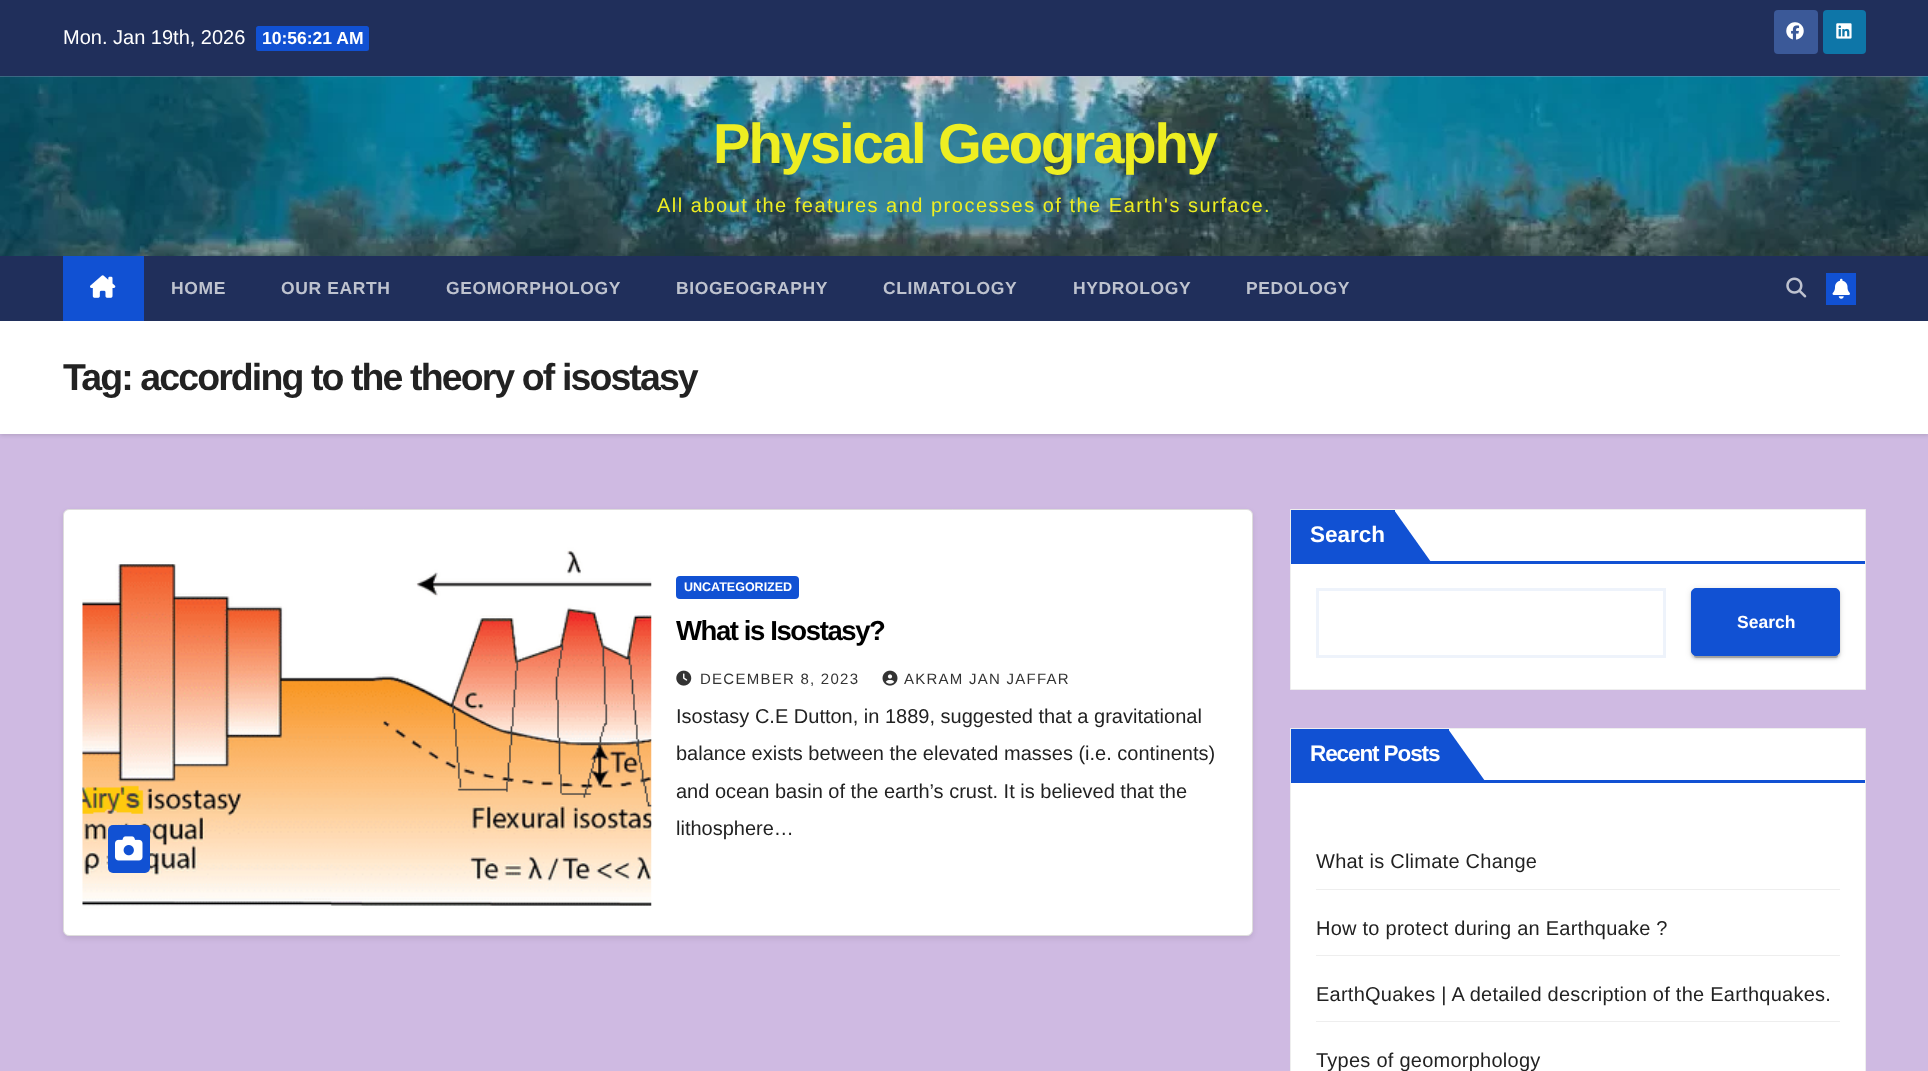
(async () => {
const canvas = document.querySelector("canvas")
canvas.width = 1928
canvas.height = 1071
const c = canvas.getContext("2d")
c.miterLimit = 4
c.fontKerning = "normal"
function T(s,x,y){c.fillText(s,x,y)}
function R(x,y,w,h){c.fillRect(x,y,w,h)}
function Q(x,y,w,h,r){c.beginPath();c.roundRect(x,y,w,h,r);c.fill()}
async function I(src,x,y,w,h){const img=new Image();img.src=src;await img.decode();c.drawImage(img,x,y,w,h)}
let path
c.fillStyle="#cfbae2"
R(0,0,1928,1071)
c.fillStyle="#202f5b"
R(0,0,1928,76)
c.font="20px Liberation Sans"
c.fillStyle="#fff"
T("Mon. Jan 19th, 2026",63,44)
c.fillStyle="#1151d3"
Q(256,26,113,25,2.5)
c.font="bold 17.5px Liberation Sans"
c.fillStyle="#fff"
T("10:56:21 AM",262,44)
c.fillStyle="#3b5998"
Q(1774,10,44,44,4)
await I("1.png",1786,22,18,18)
c.fillStyle="#0e76a8"
Q(1823,10,43,44,4)
await I("2.png",1836,23,16,16)
await I("3.png",0,76,1928,180)
c.letterSpacing="-2.1px"
c.font="bold 56.25px Liberation Sans"
c.fillStyle="#ee2"
T("Physical Geography",713,163)
c.letterSpacing="1.5px"
c.font="20px Liberation Sans"
T("All about the features and processes of the Earth's surface.",657,212)
c.fillStyle="#00000026"
c.filter="blur(2px)"
c.beginPath()
c.rect(0,323,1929,112)
c.fill()
c.filter="none"
c.fillStyle="#202f5b"
R(0,256,1928,65)
c.fillStyle="#1151d3"
R(63,256,81,65)
await I("4.png",90,275,26,23)
c.letterSpacing="0.6px"
c.font="bold 17.5px Liberation Sans"
c.fillStyle="#bec3cf"
T("HOME",171,294)
T("OUR EARTH",281,294)
T("GEOMORPHOLOGY",446,294)
T("BIOGEOGRAPHY",676,294)
T("CLIMATOLOGY",883,294)
T("HYDROLOGY",1073,294)
T("PEDOLOGY",1246,294)
await I("5.png",1786,277,21,21)
c.fillStyle="#1151d3"
R(1826,273,30,32)
await I("6.png",1832,278,18,21)
c.fillStyle="#fff"
R(0,321,1928,113)
c.letterSpacing="-1.9px"
c.font="bold 37.5px Liberation Sans"
c.fillStyle="#222"
T("Tag: according to the theory of isostasy",63,390)
c.fillStyle="#00000014"
c.filter="blur(2.5px)"
c.beginPath()
c.roundRect(63,511,1190,428,6)
c.fill()
c.filter="none"
c.fillStyle="#fff"
c.beginPath()
c.roundRect(63.5,509.5,1189,426,5.5)
c.fill()
c.strokeStyle="#dddcdc"
c.stroke()
await I("7.png",82,535,570,375)
c.fillStyle="#1151d3"
Q(108,825,42,48,5)
await I("8.png",115,836,28,25)
Q(676,576,123,23,4)
c.letterSpacing="0px"
c.font="bold 12.5px Liberation Sans"
c.fillStyle="#fff"
T("UNCATEGORIZED",684,591)
c.letterSpacing="-1.4px"
c.font="bold 27.5px Liberation Sans"
c.fillStyle="#000"
T("What is Isostasy?",676,640)
await I("9.png",676,670,16,16)
c.letterSpacing="1.25px"
c.font="15px Liberation Sans"
c.fillStyle="#333"
T("DECEMBER 8, 2023",700,684)
await I("10.png",882,670,16,16)
T("AKRAM JAN JAFFAR",904,684)
c.letterSpacing="0px"
c.font="20px Liberation Sans"
c.fillStyle="#222"
T("Isostasy C.E Dutton, in 1889, suggested that a gravitational",676,723)
T("balance exists between the elevated masses (i.e. continents)",676,760)
T("and ocean basin of the earth’s crust. It is believed that the",676,798)
T("lithosphere…",676,835)
c.fillStyle="#fff"
c.beginPath()
c.rect(1290.5,509.5,575,180)
c.fill()
c.strokeStyle="#eee"
c.stroke()
c.fillStyle="#1151d3"
R(1291,510,104,51)
c.font="bold 22.5px Liberation Sans"
c.fillStyle="#fff"
T("Search",1310,542)
c.fillStyle="#1151d3"
path = new Path2D("M1394 510v52h37z")
c.fill(path)
R(1291,561,574,3)
c.strokeStyle="#eef3fb"
c.lineWidth=3
c.strokeRect(1317.5,589.5,347,67)
c.fillStyle="#0000001f"
c.filter="blur(3px)"
c.beginPath()
c.roundRect(1691,589,149,69,5)
c.fill()
c.filter="none"
c.fillStyle="#00000033"
c.filter="blur(0.5px)"
c.beginPath()
c.roundRect(1694,594,144,64,2.5)
c.fill()
c.filter="none"
c.fillStyle="#00000024"
c.filter="blur(1px)"
c.beginPath()
c.roundRect(1691,590,149,69,5)
c.fill()
c.filter="none"
c.fillStyle="#1151d3"
c.beginPath()
c.roundRect(1691.5,588.5,148,67,4.5)
c.fill()
c.strokeStyle="#1151d3"
c.lineWidth=1
c.stroke()
c.font="bold 17.5px Liberation Sans"
c.fillStyle="#fff"
T("Search",1737,628)
c.beginPath()
c.rect(1290.5,728.5,575,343)
c.fill()
c.strokeStyle="#eee"
c.stroke()
c.fillStyle="#1151d3"
R(1291,729,158,51)
c.letterSpacing="-1.1px"
c.font="bold 22.5px Liberation Sans"
c.fillStyle="#fff"
T("Recent Posts",1310,761)
c.fillStyle="#1151d3"
path = new Path2D("M1448 729v52h37z")
c.fill(path)
R(1291,780,574,3)
c.fillStyle="#eee"
R(1316,889,524,1)
c.letterSpacing="0.25px"
c.font="20px Liberation Sans"
c.fillStyle="#222"
T("What is Climate Change",1316,868)
c.fillStyle="#eee"
R(1316,955,524,1)
c.fillStyle="#222"
T("How to protect during an Earthquake ?",1316,935)
c.fillStyle="#eee"
R(1316,1021,524,1)
c.fillStyle="#222"
T("EarthQuakes | A detailed description of the Earthquakes.",1316,1001)
T("Types of geomorphology",1316,1067)
})()
